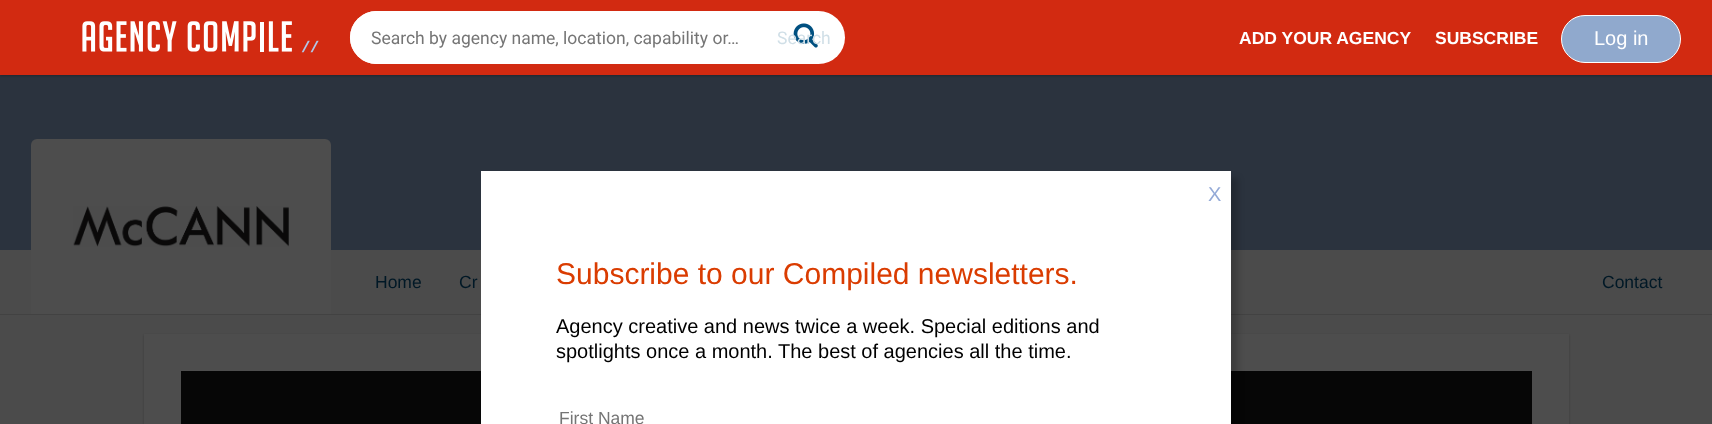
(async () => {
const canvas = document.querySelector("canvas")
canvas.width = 1712
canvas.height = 424
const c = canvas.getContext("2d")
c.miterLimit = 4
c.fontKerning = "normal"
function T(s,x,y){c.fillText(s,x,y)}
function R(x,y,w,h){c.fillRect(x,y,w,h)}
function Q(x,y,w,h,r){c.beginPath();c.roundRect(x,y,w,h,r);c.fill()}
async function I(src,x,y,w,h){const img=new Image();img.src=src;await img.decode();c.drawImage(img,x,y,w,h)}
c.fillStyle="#4b4b4b"
R(0,0,1712,424)
c.fillStyle="#2b333e"
R(0,75,1712,175)
c.fillStyle="#0000003d"
c.filter="blur(1px)"
c.beginPath()
c.rect(0,1,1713,75)
c.fill()
c.filter="none"
c.fillStyle="#d22a11"
R(0,0,1712,75)
await I("1.png",82,21,237,32)
c.fillStyle="#fff"
Q(350,11,495,53,26.5)
c.beginPath()
c.roundRect(350,11,414,53,[26.5,0,0,26.5])
c.fill()
c.font="17.5px Roboto"
c.fillStyle="#757575"
T("Search by agency name, location, capability or…",371,44)
await I("2.png",793,23,25,25)
c.fillStyle="#d0dfe7"
T("Search",777,44)
c.font="bold 17.5px Liberation Sans"
c.fillStyle="#fff"
T("ADD YOUR AGENCY",1239,44)
T("SUBSCRIBE",1435,44)
c.fillStyle="#90a9cd"
c.beginPath()
c.roundRect(1561.5,15.5,119,47,23.5)
c.fill()
c.strokeStyle="#fff"
c.stroke()
c.font="20px Liberation Sans"
c.fillStyle="#fff"
T("Log in",1594,45)
c.fillStyle="#4d4d4d"
c.beginPath()
c.roundRect(31,139,300,175,[6,6,0,0])
c.fill()
await I("3.png",73,206,216,41)
c.fillStyle="#424242"
R(0,314,1712,1)
c.font="17.5px Liberation Sans"
c.fillStyle="#001826"
T("Home",375,288)
T("Cr",459,288)
T("Contact",1602,288)
c.fillStyle="#0000003d"
c.filter="blur(1px)"
c.beginPath()
c.rect(144,335,1425,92)
c.fill()
c.filter="none"
c.fillStyle="#4d4d4d"
R(144,334,1425,90)
c.fillStyle="#060606"
R(181,371,1351,53)
c.fillStyle="#00000033"
c.filter="blur(3px)"
c.beginPath()
c.rect(488,178,750,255)
c.fill()
c.filter="none"
c.fillStyle="#fff"
R(481,171,750,253)
c.font="20px Liberation Sans"
c.fillStyle="#94aad7"
T("X",1208,201)
c.font="30px Liberation Sans"
c.fillStyle="#da3c01"
T("Subscribe to our Compiled newsletters.",556,284)
c.font="20px Liberation Sans"
c.fillStyle="#000"
T("Agency creative and news twice a week. Special editions and",556,333)
T("spotlights once a month. The best of agencies all the time.",556,358)
c.font="17.5px Liberation Sans"
c.fillStyle="#757575"
T("First Name",559,424)
})()
